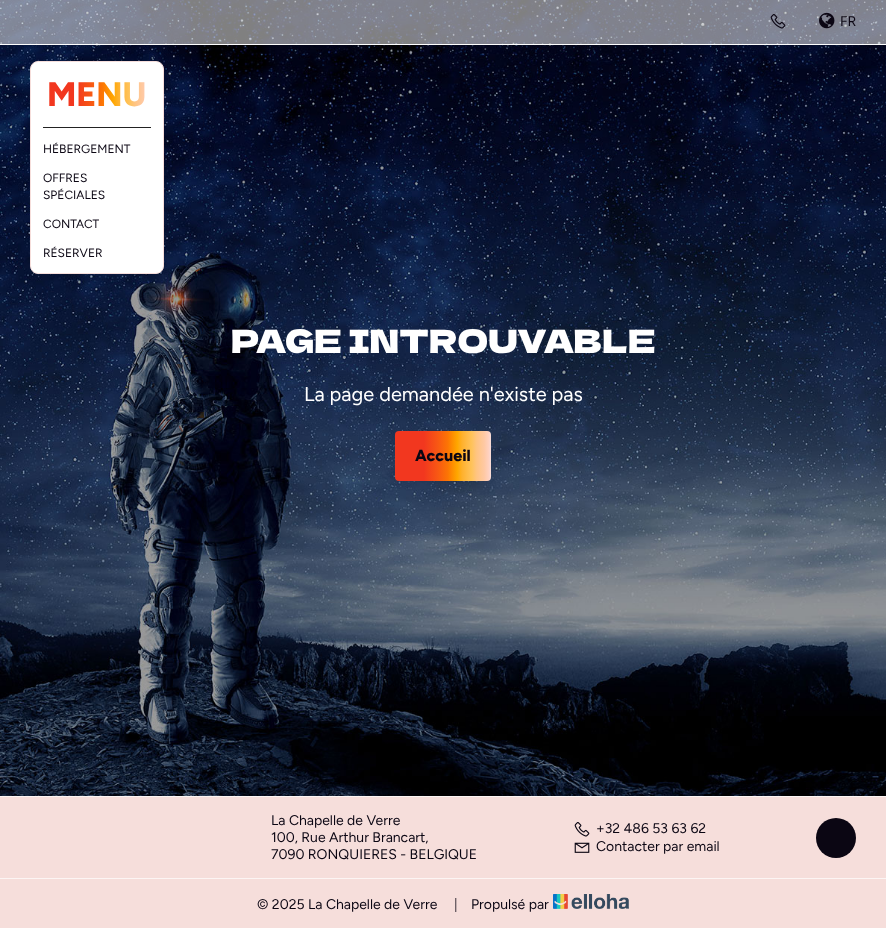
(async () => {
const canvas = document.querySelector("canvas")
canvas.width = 886
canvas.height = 928
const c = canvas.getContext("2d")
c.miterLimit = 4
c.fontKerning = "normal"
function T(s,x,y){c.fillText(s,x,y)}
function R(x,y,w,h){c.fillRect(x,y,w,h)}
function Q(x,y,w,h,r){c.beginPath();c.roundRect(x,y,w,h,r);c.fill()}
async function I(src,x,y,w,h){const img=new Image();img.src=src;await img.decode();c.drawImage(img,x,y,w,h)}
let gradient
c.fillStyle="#fff"
R(0,0,886,928)
await I("1.png",0,0,886,796)
c.fillStyle="#ffffff80"
R(0,0,886,44)
c.fillStyle="#fff"
R(0,44,886,1)
await I("2.png",770,14,16,15)
await I("3.png",819,12,16,17)
c.font="14px Figtree"
c.fillStyle="#0b0613"
T("FR",840,26)
c.fillStyle="#fff"
c.beginPath()
c.roundRect(30.5,61.5,133,212,7.5)
c.fill()
c.strokeStyle="#f6dedb"
c.stroke()
c.font="800 34px Figtree"
gradient = c.createLinearGradient(43,95,151,95)
gradient.addColorStop(.3,"#f2371f")
gradient.addColorStop(.45,"#f85913")
gradient.addColorStop(.55,"#fc7504")
gradient.addColorStop(.6,"#fe8f00")
gradient.addColorStop(.65,"#ffa700")
gradient.addColorStop(.7,"#ffb12c")
gradient.addColorStop(.75,"#ffba45")
gradient.addColorStop(.8,"#ffc35b")
gradient.addColorStop(.85,"#ffc481")
gradient.addColorStop(.93,"#ffc9a4")
gradient.addColorStop(.98,"#ffd2c3")
gradient.addColorStop(1,"#f6dedb")
c.fillStyle = gradient
T("MENU",47,106)
c.fillStyle="#222"
R(43,127,108,1)
c.font="12px Figtree"
c.fillStyle="#0b0613"
T("HÉBERGEMENT",43,153)
T("OFFRES",43,182)
T("SPÉCIALES",43,199)
T("CONTACT",43,228)
T("RÉSERVER",43,257)
c.font="32px Dela Gothic One"
c.fillStyle="#fff"
T("PAGE INTROUVABLE",231,353)
c.font="20px Figtree"
T("La page demandée n'existe pas",304,401)
gradient = c.createLinearGradient(395,456,491,456)
gradient.addColorStop(.3,"#f2371f")
gradient.addColorStop(.45,"#f85913")
gradient.addColorStop(.55,"#fc7504")
gradient.addColorStop(.6,"#fe8f00")
gradient.addColorStop(.65,"#ffa700")
gradient.addColorStop(.7,"#ffb12c")
gradient.addColorStop(.75,"#ffba45")
gradient.addColorStop(.8,"#ffc35b")
gradient.addColorStop(.85,"#ffc481")
gradient.addColorStop(.93,"#ffc9a4")
gradient.addColorStop(.98,"#ffd2c3")
gradient.addColorStop(1,"#f6dedb")
c.fillStyle = gradient
Q(395,431,96,50,4)
c.font="800 16px Figtree"
c.fillStyle="#0b0613"
T("Accueil",415,461)
c.fillStyle="#f6dedb"
R(0,797,886,81)
c.fillStyle="#fcf5f4"
R(0,796,886,1)
R(0,878,886,1)
c.font="14px Figtree"
c.fillStyle="#0b0613"
T("La Chapelle de Verre",271,825)
T("100, Rue Arthur Brancart,",271,842)
T("7090 RONQUIERES - BELGIQUE",271,859)
await I("4.png",574,822,16,15)
T("+32 486 53 63 62",596,833)
await I("5.png",574,842,16,11)
T("Contacter par email",596,851)
c.beginPath()
c.arc(836,838,20,0,7)
c.fill()
c.fillStyle="#f6dedb"
R(0,879,886,49)
c.fillStyle="#0b0613"
T("© 2025 La Chapelle de Verre",257,909)
c.font="300 14px Figtree"
T("|",454,909)
c.font="14px Figtree"
T("Propulsé par",471,909)
await I("6.png",553,894,76,15)
})()
